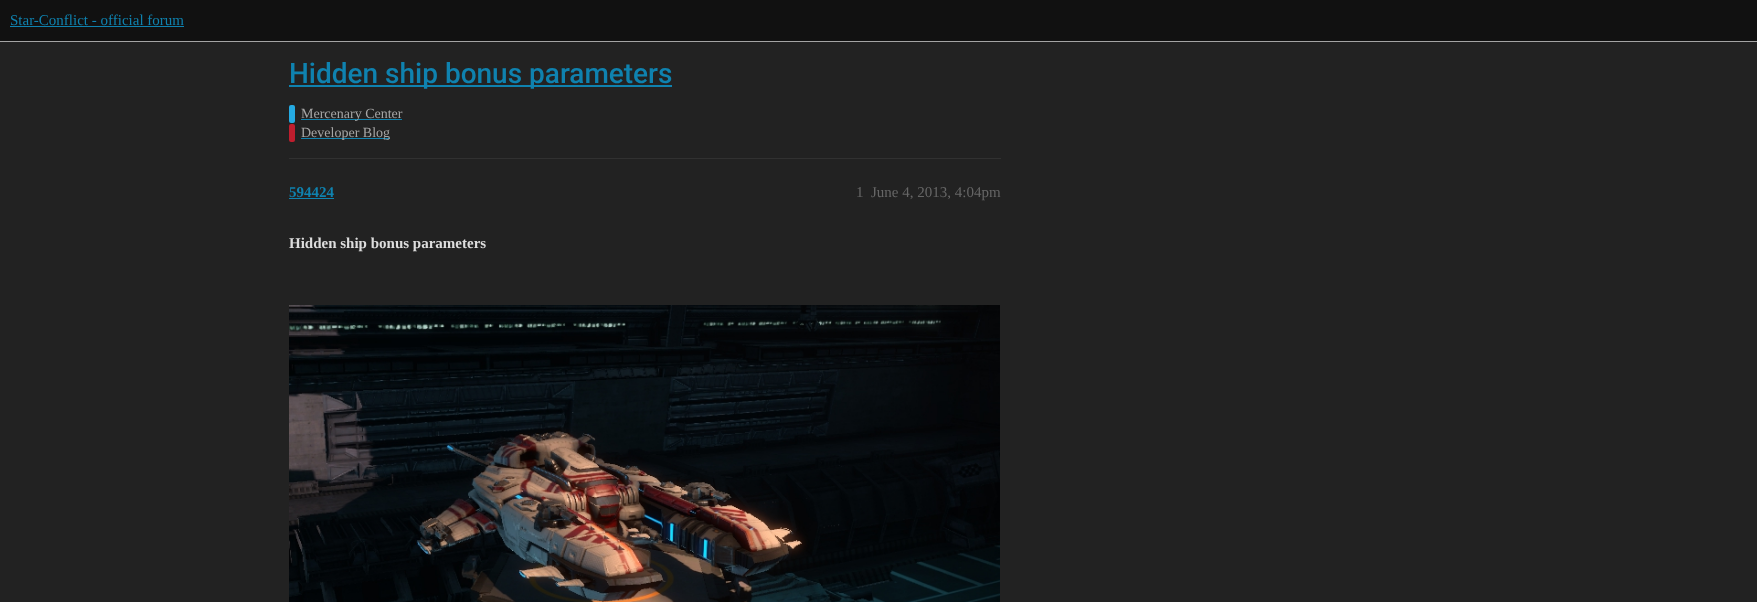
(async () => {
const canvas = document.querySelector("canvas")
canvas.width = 1757
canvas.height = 602
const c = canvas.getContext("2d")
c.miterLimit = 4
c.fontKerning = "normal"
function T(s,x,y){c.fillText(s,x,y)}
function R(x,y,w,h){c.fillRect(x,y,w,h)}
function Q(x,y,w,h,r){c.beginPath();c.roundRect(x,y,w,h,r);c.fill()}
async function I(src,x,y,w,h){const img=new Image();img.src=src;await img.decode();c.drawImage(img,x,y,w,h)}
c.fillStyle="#222"
R(0,0,1757,602)
c.fillStyle="#111"
R(0,0,1757,41)
c.fillStyle="#a4a4a4"
R(0,41,1757,1)
c.font="15px Liberation Serif"
c.fillStyle="#0f82af"
T("Star-Conflict - official forum",10,25)
R(10,26,174,1)
R(289,85,383,2)
c.font="500 28px Roboto"
T("Hidden ship bonus parameters",289,83)
c.fillStyle="#25aae2"
Q(289,105,6,18,2)
c.fillStyle="#0f82af"
R(301,119,101,1)
c.font="14px Liberation Serif"
c.fillStyle="#a6a6a6"
T("Mercenary Center",301,118)
c.fillStyle="#bf1e2e"
Q(289,124,6,18,2)
c.fillStyle="#0f82af"
R(301,138,89,1)
c.fillStyle="#a6a6a6"
T("Developer Blog",301,137)
c.fillStyle="#313131"
R(289,158,712,1)
c.font="bold 15px Liberation Serif"
c.fillStyle="#0f82af"
T("594424",289,197)
R(289,198,45,1)
c.font="15px Liberation Serif"
c.fillStyle="#666"
T("1",856,197)
T("June 4, 2013, 4:04pm",871,197)
c.font="bold 15px Liberation Serif"
c.fillStyle="#ddd"
T("Hidden ship bonus parameters",289,248)
await I("1.png",289,305,711,297)
})()
